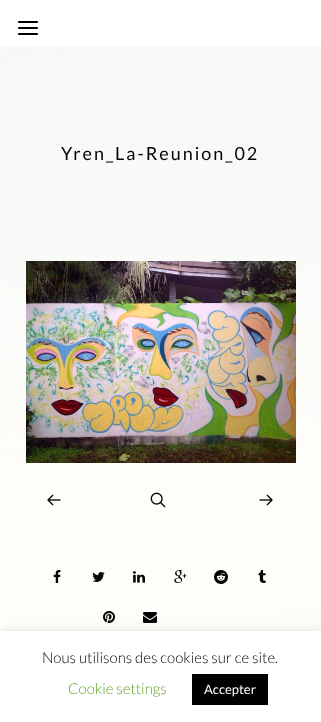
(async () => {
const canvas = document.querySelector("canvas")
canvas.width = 321
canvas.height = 722
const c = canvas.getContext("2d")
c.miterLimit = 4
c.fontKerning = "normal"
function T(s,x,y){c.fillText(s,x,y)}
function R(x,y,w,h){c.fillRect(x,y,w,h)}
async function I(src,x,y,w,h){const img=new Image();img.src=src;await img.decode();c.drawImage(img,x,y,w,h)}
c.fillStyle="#fff"
R(0,0,321,722)
await I("1.png",0,46,321,585)
await I("2.png",18,21,20,14)
c.letterSpacing="2px"
c.font="18px Lato"
c.fillStyle="#030303"
T("Yren_La-Reunion_02",61,160)
await I("3.png",26,261,270,202)
await I("4.png",47,494,14,12)
await I("5.png",150,492,16,16)
await I("6.png",259,494,14,12)
await I("7.png",53,570,8,13)
await I("8.png",92,572,13,10)
await I("9.png",133,571,12,12)
await I("10.png",174,570,13,13)
await I("11.png",214,570,14,14)
await I("12.png",258,570,8,13)
await I("13.png",103,611,12,12)
await I("14.png",143,612,14,11)
c.fillStyle="#acabab4d"
c.filter="blur(5px)"
c.beginPath()
c.rect(0,630,321,91)
c.fill()
c.filter="none"
c.fillStyle="#fff"
R(0,631,321,91)
c.letterSpacing="0px"
c.font="300 15px Lato"
c.fillStyle="#030303"
T("Nous utilisons des cookies sur ce site.",42,663)
c.fillStyle="#62a329"
T("Cookie settings",68,694)
c.fillStyle="#000"
R(192,674,76,31)
c.font="13px Lato"
c.fillStyle="#fff"
T("Accepter",204,694)
})()
